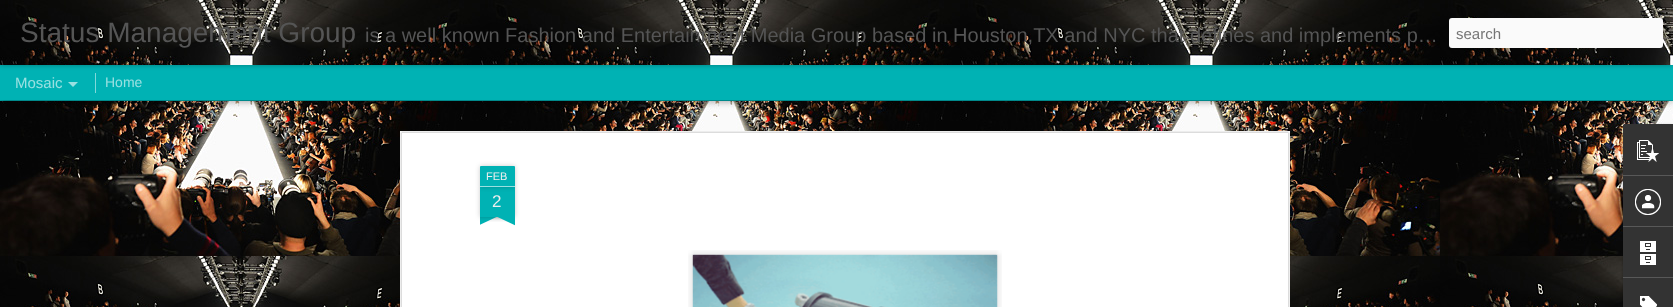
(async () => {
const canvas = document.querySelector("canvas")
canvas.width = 1673
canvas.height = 307
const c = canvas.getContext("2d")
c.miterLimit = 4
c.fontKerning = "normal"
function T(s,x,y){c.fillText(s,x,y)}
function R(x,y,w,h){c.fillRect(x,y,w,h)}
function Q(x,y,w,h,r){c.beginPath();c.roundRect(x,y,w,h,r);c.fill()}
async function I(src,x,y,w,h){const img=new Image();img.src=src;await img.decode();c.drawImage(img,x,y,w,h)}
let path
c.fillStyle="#00b2b4"
R(0,0,1673,307)
await I("2.png",0,101,1673,206)
c.fillStyle="#00000080"
c.filter="blur(4px)"
c.beginPath()
c.rect(0,65,1673,35)
c.fill()
c.filter="none"
c.fillStyle="#00b2b4"
R(0,65,1673,35)
c.fillStyle="#80d9da"
R(95,73,1,20)
c.fillStyle="#0000004d"
c.filter="blur(2.5px)"
c.beginPath()
c.rect(0,0,1673,65)
c.fill()
c.filter="none"
await I("1.png",0,0,1673,65)
c.font="28px Liberation Sans"
c.fillStyle="#555"
T("Status Management Group",20,42)
c.font="20px Liberation Sans"
T("is a well known Fashion and Entertainment Media Group based in Houston,TX and NYC that defines and implements p…",365,42)
c.fillStyle="#fafafa"
Q(1449,18,214,30,3)
c.font="15px Liberation Sans"
c.fillStyle="#757575"
T("search",1456,39)
c.fillStyle="#99e0e1"
T("Mosaic",15,88)
path = new Path2D("M68 82h10l-5 5z")
c.fill(path)
c.font="14px Liberation Sans"
T("Home",105,87)
c.fillStyle="#fff"
R(400,131,890,176)
await I("3.png",400,131,890,176)
c.fillStyle="#00000033"
c.filter="blur(2.5px)"
c.beginPath()
c.rect(480,187,35,30)
c.fill()
c.filter="none"
c.fillStyle="#00b2b4"
R(480,187,35,30)
c.fillStyle="#00000033"
c.filter="blur(2.5px)"
c.beginPath()
c.roundRect(480,166,35,21,1)
c.fill()
c.filter="none"
c.fillStyle="#00b2b4"
c.beginPath()
c.roundRect(480,166,35,21,[1,1,0,0])
c.fill()
c.fillStyle="#99e0e1"
R(480,186,35,1)
c.font="11px Liberation Sans"
c.fillStyle="#eee"
T("FEB",486,180)
c.font="17px Liberation Sans"
T("2",492,207)
c.save()
c.beginPath()
c.rect(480,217,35,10)
c.clip()
c.fillStyle="#00000033"
c.filter="blur(2.5px)"
c.beginPath()
c.rect(471,207,50,10)
c.fill()
c.filter="none"
c.restore()
c.save()
c.beginPath()
c.rect(480,217,35,10)
c.clip()
c.fillStyle="#00b2b4"
path = new Path2D("M471 218l45-21l4 9l-45 21z")
c.fill(path)
c.restore()
c.save()
c.beginPath()
c.rect(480,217,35,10)
c.clip()
c.fillStyle="#00000033"
c.filter="blur(2.5px)"
c.beginPath()
c.rect(474,207,50,10)
c.fill()
c.filter="none"
c.restore()
c.save()
c.beginPath()
c.rect(480,217,35,10)
c.clip()
c.fillStyle="#00b2b4"
path = new Path2D("M478 197l45 21l-4 9l-45-21z")
c.fill(path)
c.restore()
await I("4.png",688,250,314,57)
await I("5.png",692,254,306,53)
c.fillStyle="#0000004d"
c.filter="blur(1.5px)"
c.beginPath()
c.roundRect(1623,125,50,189,2)
c.fill()
c.filter="none"
c.fillStyle="#333"
path = new Path2D("M1625 124h48v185h-48c-1 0-2-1-2-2v-181c0-1 1-2 2-2z")
c.fill(path)
c.beginPath()
c.roundRect(1623,124,50,51,[2,0,0,0])
c.fill()
await I("6.png",1637,140,22,22)
c.fillStyle="#585858"
R(1623,175,50,1)
await I("7.png",1635,189,26,26)
R(1623,226,50,1)
await I("8.png",1640,241,16,24)
R(1623,277,50,1)
await I("9.png",1640,296,17,11)
})()
